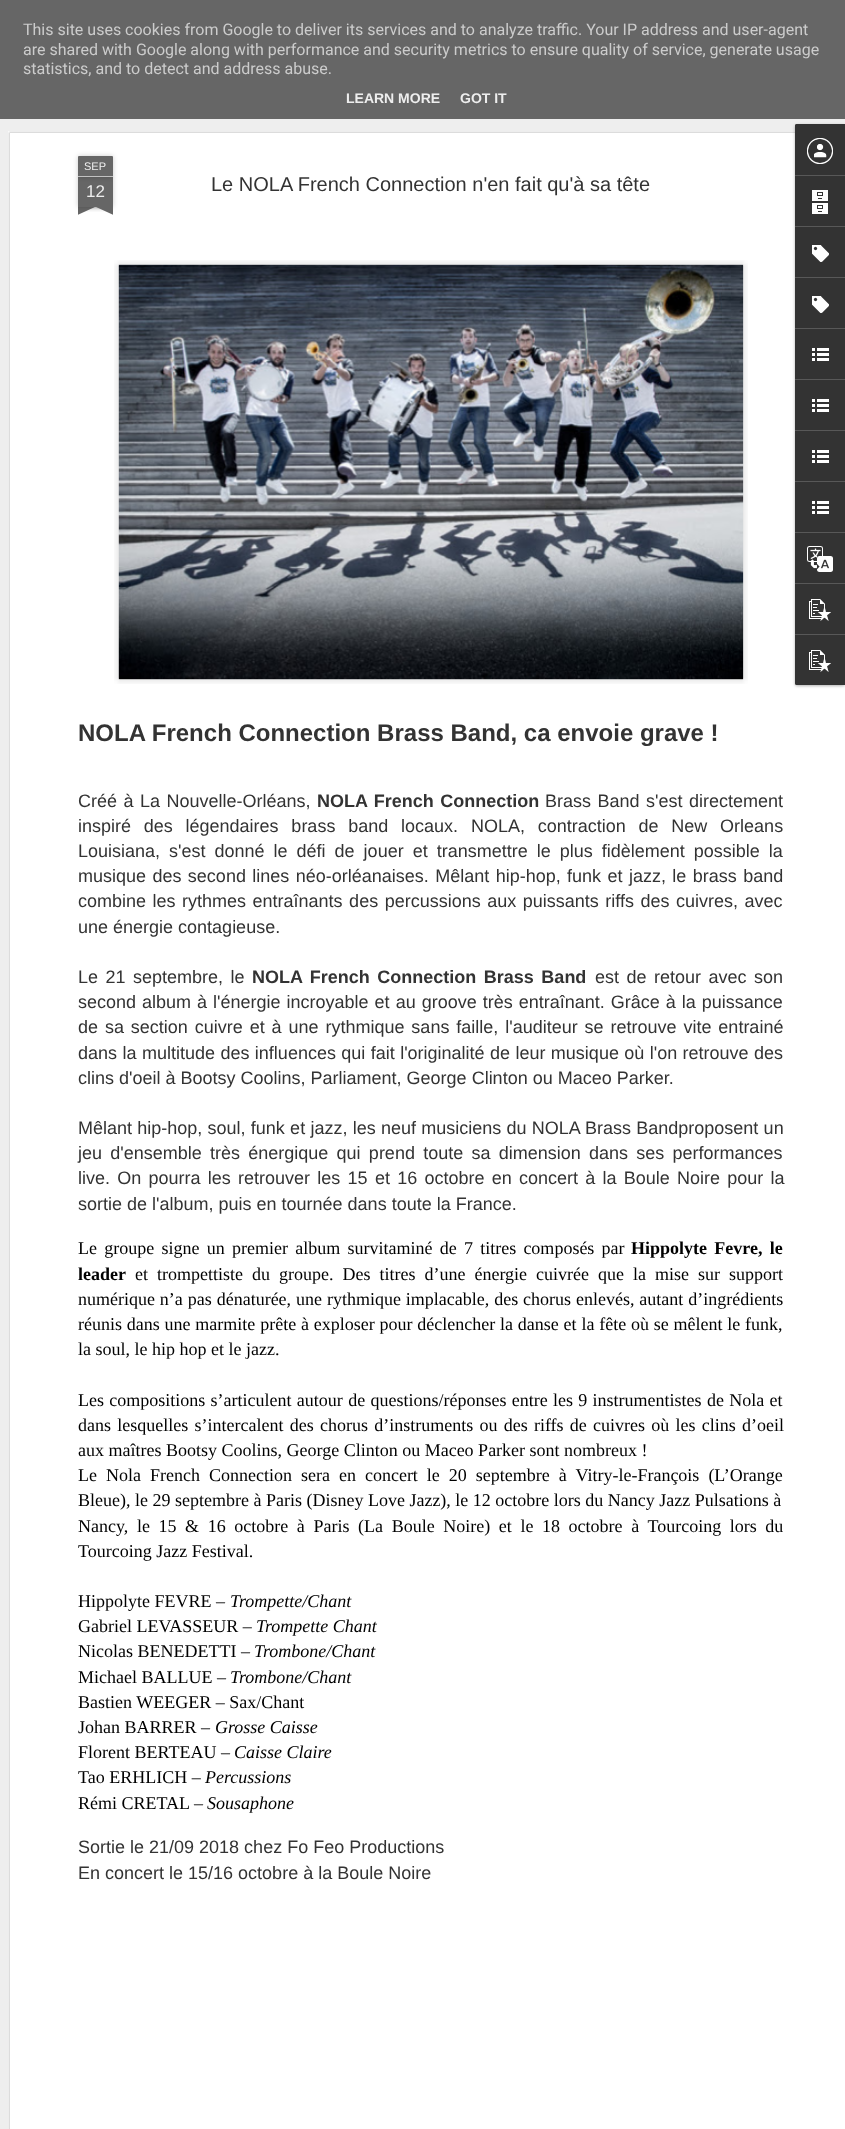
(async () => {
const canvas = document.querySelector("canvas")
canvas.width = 845
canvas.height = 2129
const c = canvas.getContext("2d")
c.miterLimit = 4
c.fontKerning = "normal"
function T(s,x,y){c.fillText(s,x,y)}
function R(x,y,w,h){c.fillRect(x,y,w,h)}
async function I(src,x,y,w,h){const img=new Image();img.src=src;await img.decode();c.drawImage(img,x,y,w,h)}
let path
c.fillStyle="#eee"
R(0,0,845,2129)
c.fillStyle="#666"
R(0,0,845,119)
c.font="16px Roboto"
c.fillStyle="#ccc"
T("This site uses cookies from Google to deliver its services and to analyze traffic. Your IP address and user-agent",23,35)
T("are shared with Google along with performance and security metrics to ensure quality of service, generate usage",23,55)
T("statistics, and to detect and address abuse.",23,74)
c.font="bold 14px Liberation Sans"
c.fillStyle="#eee"
T("LEARN MORE",346,103)
T("GOT IT",460,103)
c.fillStyle="#fff"
R(8,131,837,1998)
await I("1.png",8,131,787,1998)
c.fillStyle="#00000033"
c.filter="blur(2.5px)"
c.beginPath()
c.rect(78,177,35,30)
c.fill()
c.filter="none"
c.fillStyle="#666"
R(78,177,35,30)
c.fillStyle="#00000033"
c.filter="blur(2.5px)"
c.beginPath()
c.roundRect(78,156,35,21,1)
c.fill()
c.filter="none"
c.fillStyle="#666"
c.beginPath()
c.roundRect(78,156,35,21,[1,1,0,0])
c.fill()
c.fillStyle="#c2c2c2"
R(78,176,35,1)
c.font="11px Liberation Sans"
c.fillStyle="#eee"
T("SEP",84,170)
c.font="17px Liberation Sans"
T("12",86,197)
c.save()
c.beginPath()
c.rect(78,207,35,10)
c.clip()
c.fillStyle="#00000033"
c.filter="blur(2.5px)"
c.beginPath()
c.rect(69,197,50,10)
c.fill()
c.filter="none"
c.restore()
c.save()
c.beginPath()
c.rect(78,207,35,10)
c.clip()
c.fillStyle="#666"
path = new Path2D("M69 208l46-21l4 9l-46 21z")
c.fill(path)
c.restore()
c.save()
c.beginPath()
c.rect(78,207,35,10)
c.clip()
c.fillStyle="#00000033"
c.filter="blur(2.5px)"
c.beginPath()
c.rect(72,197,50,10)
c.fill()
c.filter="none"
c.restore()
c.save()
c.beginPath()
c.rect(78,207,35,10)
c.clip()
c.fillStyle="#666"
path = new Path2D("M76 187l46 21l-4 9l-46-21z")
c.fill(path)
c.restore()
c.font="20px Liberation Sans"
c.fillStyle="#333"
T("Le NOLA French Connection n'en fait qu'à sa tête",211,191)
await I("2.png",114,260,634,424)
await I("3.png",118,264,626,416)
c.font="bold 24px Liberation Sans"
T("NOLA French Connection Brass Band, ca envoie grave !",78,741)
c.wordSpacing="1.5px"
c.font="18px Liberation Sans"
T("Créé à La Nouvelle-Orléans,",78,807)
c.font="bold 18px Liberation Sans"
T("NOLA French Connection",317,807)
c.font="18px Liberation Sans"
T("Brass Band s'est directement",545,807)
c.wordSpacing="7.75px"
T("inspiré des légendaires brass band locaux.",78,832)
T("NOLA, contraction de New Orleans",471,832)
c.wordSpacing="4px"
T("Louisiana, s'est donné le défi de jouer et transmettre le plus fidèlement possible la",78,857)
c.wordSpacing="1.4px"
T("musique des second lines néo-orléanaises. Mêlant hip-hop, funk et jazz, le brass band",78,882)
c.wordSpacing="1.5px"
T("combine les rythmes entraînants des percussions aux puissants riffs des cuivres, avec",78,907)
c.wordSpacing="0px"
T("une énergie contagieuse.",78,933)
c.wordSpacing="2.5px"
T("Le 21 septembre, le",78,983)
c.font="bold 18px Liberation Sans"
T("NOLA French Connection Brass Band",252,983)
c.font="18px Liberation Sans"
T("est de retour avec son",595,983)
c.wordSpacing="1px"
T("second album à l'énergie incroyable et au groove très entraînant. Grâce à la puissance",78,1008)
c.wordSpacing="1.9px"
T("de sa section cuivre et à une rythmique sans faille, l'auditeur se retrouve vite entrainé",78,1033)
c.wordSpacing="0.4px"
T("dans la",78,1059)
T("multitude des influences qui fait l'originalité de leur musique où l'on retrouve des",142,1059)
c.wordSpacing="0px"
T("clins d'oeil à Bootsy Coolins, Parliament, George Clinton ou Maceo Parker.",78,1084)
c.wordSpacing="0.25px"
T("Mêlant hip-hop, soul, funk et jazz, les neuf musiciens du NOLA Brass Bandproposent un",78,1134)
c.wordSpacing="3.25px"
T("jeu d'ensemble très énergique qui prend toute sa dimension dans ses performances",78,1159)
c.wordSpacing="2.25px"
T("live. On pourra les retrouver les 15 et 16 octobre en concert à la Boule Noire pour la",78,1184)
c.wordSpacing="0px"
T("sortie de l'album, puis en tournée dans toute la France.",78,1210)
c.wordSpacing="2.75px"
c.font="18px Liberation Serif"
c.fillStyle="#000"
T("Le groupe signe un premier album survitaminé de 7 titres composés par",78,1254)
c.font="bold 18px Liberation Serif"
T("Hippolyte Fevre, le",631,1254)
c.wordSpacing="0px"
T("leader",78,1280)
c.wordSpacing="4.5px"
c.font="18px Liberation Serif"
T("et trompettiste du groupe. Des titres d’une énergie cuivrée que la mise sur support",135,1280)
c.wordSpacing="0.4px"
T("numérique n’a pas dénaturée, une rythmique implacable, des chorus enlevés, autant d’ingrédients",78,1305)
c.wordSpacing="0.3px"
T("réunis dans une marmite prête à exploser pour déclencher la danse et la fête où se mêlent le funk,",78,1330)
c.wordSpacing="0px"
T("la soul, le hip hop et le jazz.",78,1355)
c.wordSpacing="0.8px"
T("Les compositions s’articulent autour de questions/réponses entre les 9 instrumentistes de Nola et",78,1406)
c.wordSpacing="1.75px"
T("dans lesquelles s’intercalent des chorus d’instruments ou des riffs de cuivres où les clins d’oeil",78,1431)
c.wordSpacing="0px"
T("aux maîtres Bootsy Coolins, George Clinton ou Maceo Parker sont nombreux !",78,1456)
c.wordSpacing="4.5px"
T("Le Nola French Connection sera en concert le 20 septembre à Vitry-le-François (L’Orange",78,1481)
c.wordSpacing="0px"
T("Bleue), le 29 septembre à Paris (Disney Love Jazz), le 12 octobre lors du Nancy Jazz Pulsations à",78,1506)
c.wordSpacing="4.1px"
T("Nancy, le 15 & 16 octobre à Paris (La Boule Noire) et le 18 octobre à Tourcoing lors du",78,1532)
c.wordSpacing="0px"
T("Tourcoing Jazz Festival.",78,1557)
T("Hippolyte FEVRE –",78,1607)
c.font="italic 18px Liberation Serif"
T("Trompette/Chant",230,1607)
c.font="18px Liberation Serif"
T("Gabriel LEVASSEUR –",78,1632)
c.font="italic 18px Liberation Serif"
T("Trompette Chant",256,1632)
c.font="18px Liberation Serif"
T("Nicolas BENEDETTI –",78,1657)
c.font="italic 18px Liberation Serif"
T("Trombone/Chant",254,1657)
c.font="18px Liberation Serif"
T("Michael BALLUE –",78,1683)
c.font="italic 18px Liberation Serif"
T("Trombone/Chant",230,1683)
c.font="18px Liberation Serif"
T("Bastien WEEGER – Sax/Chant",78,1708)
T("Johan BARRER –",78,1733)
c.font="italic 18px Liberation Serif"
T("Grosse Caisse",215,1733)
c.font="18px Liberation Serif"
T("Florent BERTEAU –",78,1758)
c.font="italic 18px Liberation Serif"
T("Caisse Claire",234,1758)
c.font="18px Liberation Serif"
T("Tao ERHLICH –",78,1783)
c.font="italic 18px Liberation Serif"
T("Percussions",205,1783)
c.font="18px Liberation Serif"
T("Rémi CRETAL –",78,1809)
c.font="italic 18px Liberation Serif"
T("Sousaphone",207,1809)
c.font="18px Liberation Sans"
c.fillStyle="#333"
T("Sortie le 21/09 2018 chez Fo Feo Productions",78,1853)
T("En concert le 15/16 octobre à la Boule Noire",78,1879)
c.fillStyle="#0000004d"
c.filter="blur(1.5px)"
c.beginPath()
c.roundRect(795,125,50,561,2)
c.fill()
c.filter="none"
c.fillStyle="#333"
c.beginPath()
c.roundRect(795,124,50,561,[2,0,0,2])
c.fill()
c.beginPath()
c.roundRect(795,124,50,51,[2,0,0,0])
c.fill()
await I("4.png",807,138,26,26)
c.fillStyle="#585858"
R(795,175,50,1)
await I("5.png",812,190,16,24)
R(795,226,50,1)
await I("6.png",812,245,17,17)
R(795,277,50,1)
await I("6.png",812,296,17,17)
R(795,328,50,1)
await I("7.png",812,348,17,13)
R(795,379,50,1)
await I("7.png",812,399,17,13)
R(795,430,50,1)
await I("7.png",812,450,17,13)
R(795,481,50,1)
await I("7.png",812,501,17,13)
R(795,532,50,1)
await I("8.png",807,546,26,26)
R(795,583,50,1)
await I("9.png",809,599,22,22)
c.fillStyle="#333"
c.beginPath()
c.roundRect(795,634,50,51,[0,0,0,2])
c.fill()
c.fillStyle="#585858"
R(795,634,50,1)
await I("9.png",809,650,22,22)
})()
